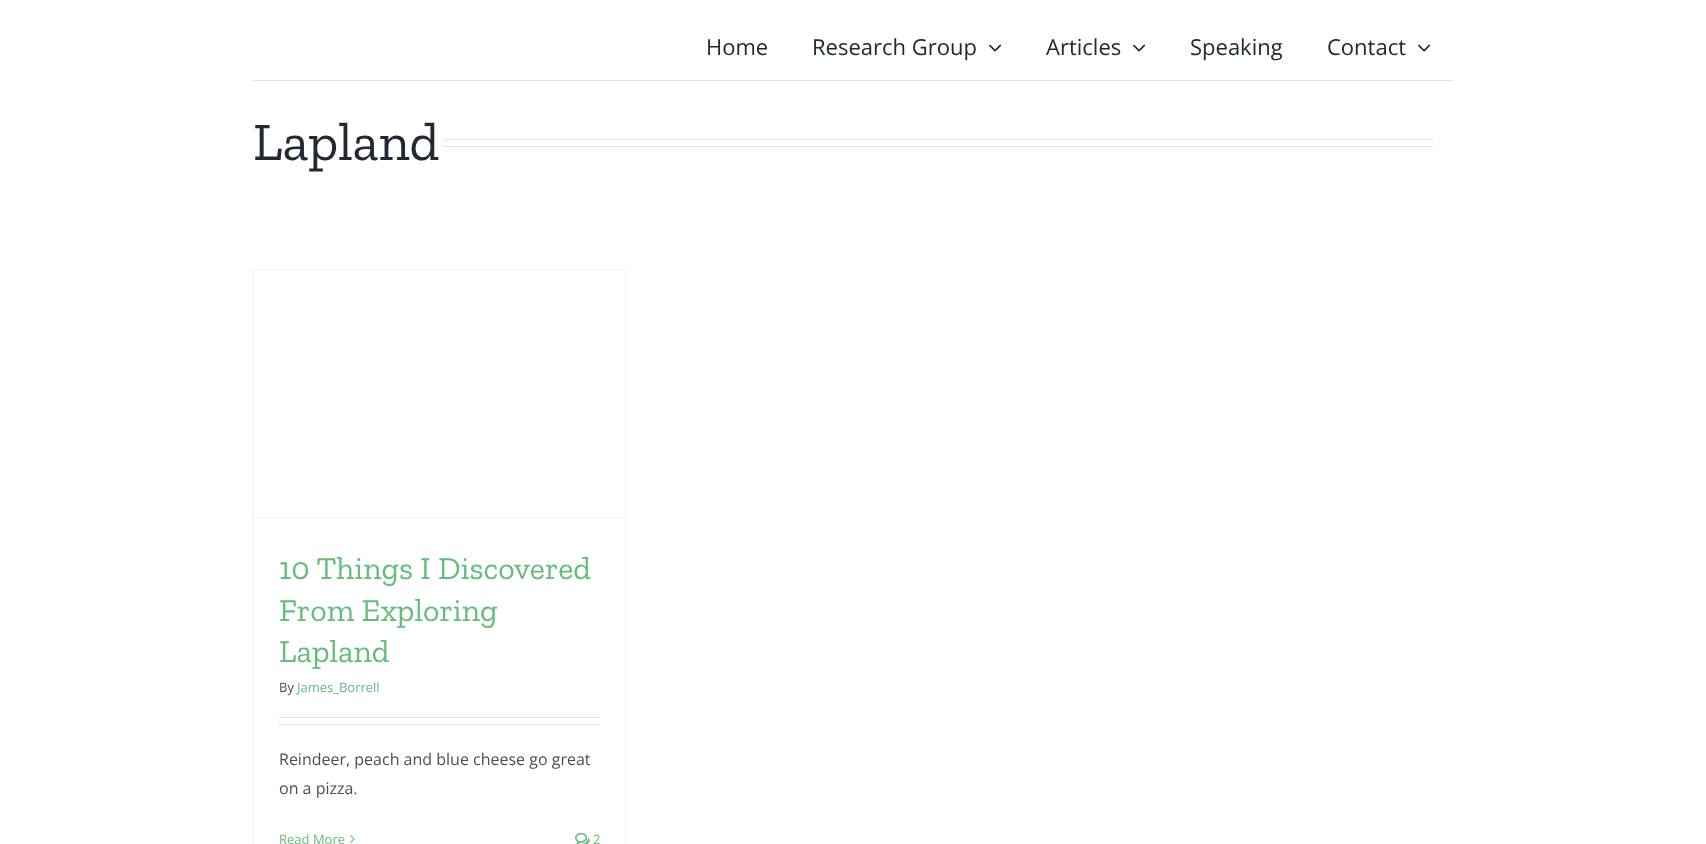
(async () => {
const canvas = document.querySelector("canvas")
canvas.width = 1706
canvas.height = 844
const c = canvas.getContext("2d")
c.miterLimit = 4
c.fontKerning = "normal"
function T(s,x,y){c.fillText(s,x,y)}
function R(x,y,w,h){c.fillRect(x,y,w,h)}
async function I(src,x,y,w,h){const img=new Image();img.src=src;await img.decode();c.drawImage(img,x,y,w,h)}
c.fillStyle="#fff"
R(0,0,1706,844)
c.font="22px Open Sans"
c.fillStyle="#212934"
T("Home",706,55)
T("Research Group",812,55)
await I("1.png",989,44,13,8)
T("Articles",1046,55)
await I("1.png",1133,44,13,8)
T("Speaking",1190,55)
T("Contact",1327,55)
await I("1.png",1418,44,13,8)
c.fillStyle="#e2e2e2"
R(253,80,1200,1)
c.font="54px Zilla Slab"
c.fillStyle="#212934"
T("Lapland",253,160)
c.fillStyle="#e2e2e2"
R(444,139,989,1)
R(444,146,989,1)
c.fillStyle="#f2f3f5"
R(253,269,373,1)
R(625,269,1,575)
R(253,269,1,575)
R(254,517,371,1)
c.font="32px Zilla Slab"
c.fillStyle="#65bc7b"
T("10 Things I Discovered",279,579)
T("From Exploring",279,621)
T("Lapland",279,662)
c.font="13px Open Sans"
c.fillStyle="#4a4e57"
T("By",279,692)
c.fillStyle="#65bc7b"
T("James_Borrell",297,692)
c.fillStyle="#e2e2e2"
R(279,717,321,1)
R(279,724,321,1)
c.font="16px Open Sans"
c.fillStyle="#4a4e57"
T("Reindeer, peach and blue cheese go great",279,765)
T("on a pizza.",279,794)
c.font="13px Open Sans"
c.fillStyle="#65bc7b"
T("Read More",279,844)
await I("2.png",350,835,5,8)
await I("3.png",575,832,15,12)
T("2",593,844)
})()
